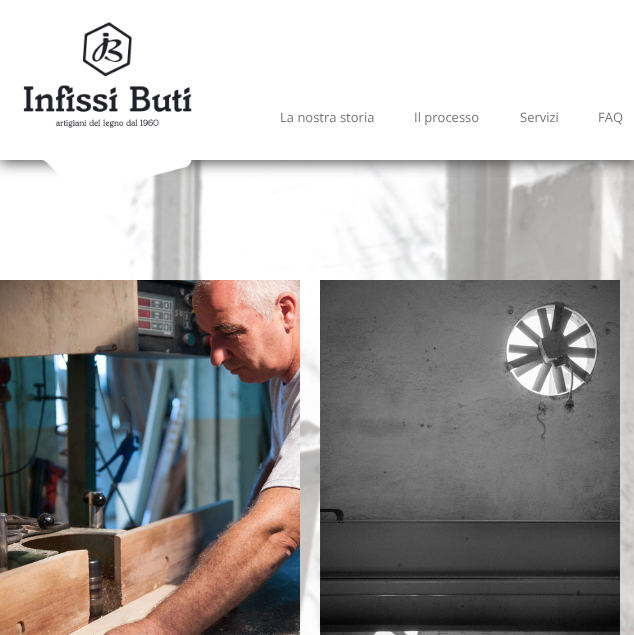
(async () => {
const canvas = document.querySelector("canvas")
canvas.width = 634
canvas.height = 635
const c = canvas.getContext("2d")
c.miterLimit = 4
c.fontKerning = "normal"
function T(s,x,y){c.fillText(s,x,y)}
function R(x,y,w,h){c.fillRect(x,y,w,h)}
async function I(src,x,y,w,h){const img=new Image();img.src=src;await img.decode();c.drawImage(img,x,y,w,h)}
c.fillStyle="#fff"
R(0,0,634,635)
await I("2.png",0,160,634,475)
c.save()
c.beginPath()
c.rect(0,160,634,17)
c.clip()
c.fillStyle="#444"
c.filter="blur(7.5px)"
c.beginPath()
c.rect(0,2,634,160)
c.fill()
c.filter="none"
c.restore()
await I("1.png",23,22,169,158)
c.font="13px Open Sans"
c.fillStyle="#777"
T("La nostra storia",280,122)
T("Il processo",414,122)
T("Servizi",520,122)
T("FAQ",598,122)
await I("3.png",0,280,300,355)
await I("4.png",320,280,300,355)
})()
